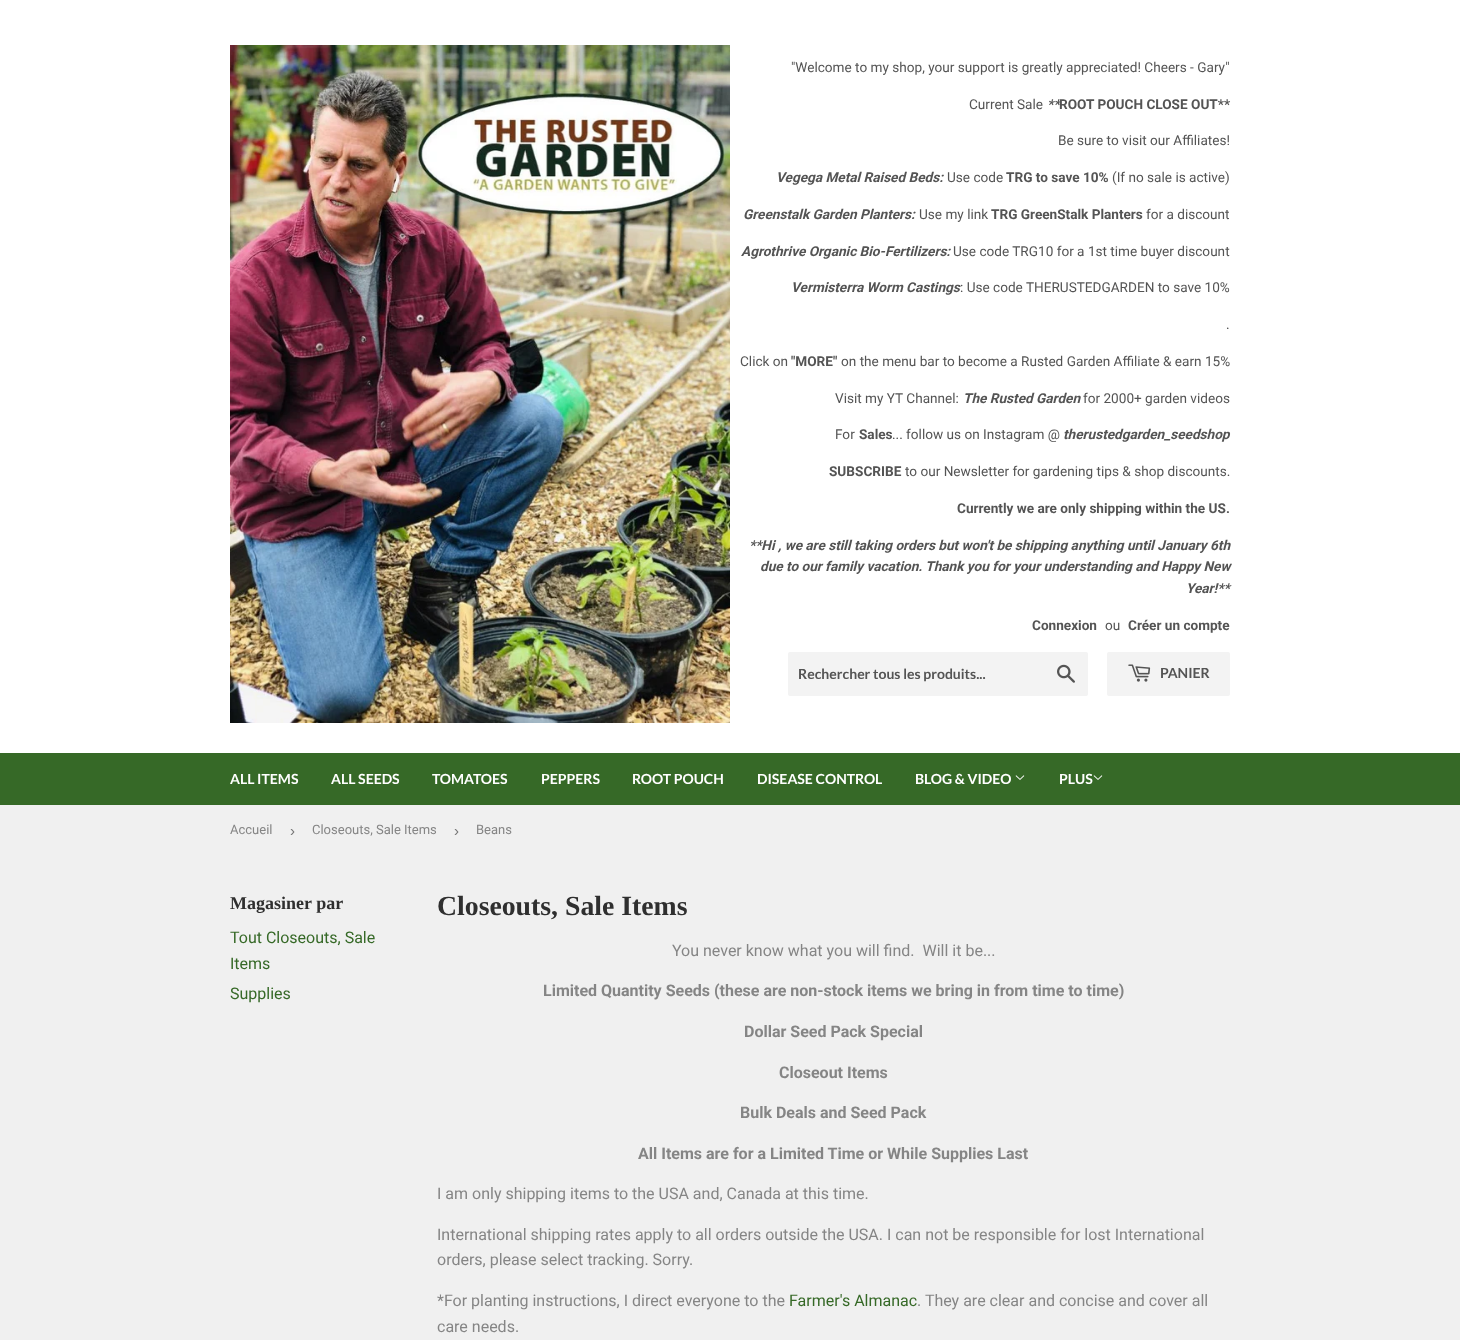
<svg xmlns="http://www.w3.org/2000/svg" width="1460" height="1340">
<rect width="100%" height="100%" fill="#f0f0f0"/>
<rect width="1460" height="753" fill="#fff"/>
<image x="230" y="45" width="500" height="678" href="media/1.png"/>
<text x="791" y="72" style="font-family:Roboto;font-size:13.6px;fill:#545454">"Welcome to my shop, your support is greatly appreciated! Cheers - Gary"</text>
<text x="969" y="109" style="font-family:Roboto;font-size:13.6px;fill:#545454">Current Sale</text>
<text x="1047" y="109" style="font-family:Roboto;font-size:13.6px;font-weight:bold;font-style:italic;fill:#545454">**</text>
<text x="1059" y="109" style="font-family:Roboto;font-size:13.6px;font-weight:bold;fill:#545454">ROOT POUCH CLOSE OUT**</text>
<text x="1058" y="145" style="font-family:Roboto;font-size:13.6px;fill:#545454">Be sure to visit our Affiliates!</text>
<text x="776" y="182" style="font-family:Roboto;font-size:13.6px;font-weight:bold;font-style:italic;fill:#545454">Vegega Metal Raised Beds:</text>
<text x="947" y="182" style="font-family:Roboto;font-size:13.6px;fill:#545454">Use code</text>
<text x="1006" y="182" style="font-family:Roboto;font-size:13.6px;font-weight:bold;fill:#545454">TRG to save 10%</text>
<text x="1112" y="182" style="font-family:Roboto;font-size:13.6px;fill:#545454">(If no sale is active)</text>
<text x="743" y="219" style="font-family:Roboto;font-size:13.6px;font-weight:bold;font-style:italic;fill:#545454">Greenstalk Garden Planters:</text>
<text x="919" y="219" style="font-family:Roboto;font-size:13.6px;fill:#545454">Use my link</text>
<text x="991" y="219" style="font-family:Roboto;font-size:13.6px;font-weight:bold;fill:#545454">TRG GreenStalk Planters</text>
<text x="1146" y="219" style="font-family:Roboto;font-size:13.6px;fill:#545454">for a discount</text>
<text x="741" y="256" style="font-family:Roboto;font-size:13.6px;font-weight:bold;font-style:italic;fill:#545454">Agrothrive Organic Bio-Fertilizers:</text>
<text x="953" y="256" style="font-family:Roboto;font-size:13.6px;fill:#545454">Use code TRG10 for a 1st time buyer discount</text>
<text x="791" y="292" style="font-family:Roboto;font-size:13.6px;font-weight:bold;font-style:italic;fill:#545454">Vermisterra Worm Castings</text>
<text x="960" y="292" style="font-family:Roboto;font-size:13.6px;fill:#545454">: Use code THERUSTEDGARDEN to save 10%</text>
<text x="1226" y="329" style="font-family:Roboto;font-size:13.6px;fill:#545454">.</text>
<text x="740" y="366" style="font-family:Roboto;font-size:13.6px;fill:#545454">Click on</text>
<text x="791" y="366" style="font-family:Roboto;font-size:13.6px;font-weight:bold;fill:#545454">"MORE"</text>
<text x="841" y="366" style="font-family:Roboto;font-size:13.6px;fill:#545454">on the menu bar to become a Rusted Garden Affiliate &amp; earn 15%</text>
<text x="835" y="403" style="font-family:Roboto;font-size:13.6px;fill:#545454">Visit my YT Channel:</text>
<text x="963" y="403" style="font-family:Roboto;font-size:13.6px;font-weight:bold;font-style:italic;fill:#545454">The Rusted Garden</text>
<text x="1083" y="403" style="font-family:Roboto;font-size:13.6px;fill:#545454">for 2000+ garden videos</text>
<text x="835" y="439" style="font-family:Roboto;font-size:13.6px;fill:#545454">For</text>
<text x="859" y="439" style="font-family:Roboto;font-size:13.6px;font-weight:bold;fill:#545454">Sales</text>
<text x="892" y="439" style="font-family:Roboto;font-size:13.6px;fill:#545454">... follow us on Instagram @</text>
<text x="1063" y="439" style="font-family:Roboto;font-size:13.6px;font-weight:bold;font-style:italic;fill:#545454">therustedgarden_seedshop</text>
<text x="829" y="476" style="font-family:Roboto;font-size:13.6px;font-weight:bold;fill:#545454">SUBSCRIBE</text>
<text x="905" y="476" style="font-family:Roboto;font-size:13.6px;fill:#545454">to our Newsletter for gardening tips &amp; shop discounts.</text>
<text x="957" y="513" style="font-family:Roboto;font-size:13.6px;font-weight:bold;fill:#545454">Currently we are only shipping within the US.</text>
<text x="749" y="550" style="font-family:Roboto;font-size:13.6px;font-weight:bold;font-style:italic;fill:#545454">**Hi , we are still taking orders but won't be shipping anything until January 6th</text>
<text x="760" y="571" style="font-family:Roboto;font-size:13.6px;font-weight:bold;font-style:italic;fill:#545454">due to our family vacation. Thank you for your understanding and Happy New</text>
<text x="1186" y="593" style="font-family:Roboto;font-size:13.6px;font-weight:bold;font-style:italic;fill:#545454">Year!**</text>
<text x="1032" y="630" style="font-family:Roboto;font-size:13.6px;font-weight:bold;fill:#545454">Connexion</text>
<text x="1105" y="630" style="font-family:Roboto;font-size:13.6px;fill:#545454">ou</text>
<text x="1128" y="630" style="font-family:Roboto;font-size:13.6px;font-weight:bold;fill:#545454">Créer un compte</text>
<rect x="788" y="652" width="300" height="44" rx="2" fill="#f3f3f3"/>
<text x="798" y="679" style="font-family:Lato;font-size:14px;font-weight:bold;fill:#545454">Rechercher tous les produits...</text>
<image x="1057" y="664" width="18" height="19" href="media/2.png"/>
<rect x="1107" y="652" width="123" height="44" rx="2" fill="#f3f3f3"/>
<image x="1128" y="664" width="23" height="18" href="media/3.png"/>
<text x="1160" y="678" style="font-family:Lato;font-size:14px;font-weight:bold;fill:#545454">PANIER</text>
<rect y="753" width="1460" height="52" fill="#366927"/>
<text x="230" y="784" style="font-family:Lato;font-size:14px;font-weight:bold;fill:#fff">ALL ITEMS</text>
<text x="331" y="784" style="font-family:Lato;font-size:14px;font-weight:bold;fill:#fff">ALL SEEDS</text>
<text x="432" y="784" style="font-family:Lato;font-size:14px;font-weight:bold;fill:#fff">TOMATOES</text>
<text x="541" y="784" style="font-family:Lato;font-size:14px;font-weight:bold;fill:#fff">PEPPERS</text>
<text x="632" y="784" style="font-family:Lato;font-size:14px;font-weight:bold;fill:#fff">ROOT POUCH</text>
<text x="757" y="784" style="font-family:Lato;font-size:14px;font-weight:bold;fill:#fff">DISEASE CONTROL</text>
<text x="915" y="784" style="font-family:Lato;font-size:14px;font-weight:bold;fill:#fff">BLOG &amp; VIDEO</text>
<image x="1015" y="775" width="10" height="5" href="media/4.png"/>
<text x="1059" y="784" style="font-family:Lato;font-size:14px;font-weight:bold;fill:#fff">PLUS</text>
<image x="1093" y="775" width="10" height="5" href="media/4.png"/>
<text x="230" y="834" style="font-family:Roboto;font-size:13px;fill:#858585">Accueil</text>
<text x="290" y="836" style="font-family:Liberation Sans;font-size:15px;fill:#767676">›</text>
<text x="312" y="834" style="font-family:Roboto;font-size:13px;fill:#858585">Closeouts, Sale Items</text>
<text x="454" y="836" style="font-family:Liberation Sans;font-size:15px;fill:#767676">›</text>
<text x="476" y="834" style="font-family:Roboto;font-size:13px;fill:#858585">Beans</text>
<text x="230" y="909" style="font-family:Liberation Serif;font-size:18px;font-weight:bold;fill:#2f2f2f">Magasiner par</text>
<text x="230" y="943" style="font-family:Roboto;font-size:16px;fill:#366927">Tout Closeouts, Sale</text>
<text x="230" y="969" style="font-family:Roboto;font-size:16px;fill:#366927">Items</text>
<text x="230" y="999" style="font-family:Roboto;font-size:16px;fill:#366927">Supplies</text>
<text x="437" y="915" style="font-family:Liberation Serif;font-size:27.75px;font-weight:bold;fill:#2f2f2f">Closeouts, Sale Items</text>
<text x="672" y="956" style="font-family:Roboto;font-size:16px;fill:#858585" xml:space="preserve">You never know what you will find.  Will it be...</text>
<text x="543" y="996" style="font-family:Roboto;font-size:16px;font-weight:bold;fill:#858585">Limited Quantity Seeds (these are non-stock items we bring in from time to time)</text>
<text x="744" y="1037" style="font-family:Roboto;font-size:16px;font-weight:bold;fill:#858585">Dollar Seed Pack Special</text>
<text x="779" y="1078" style="font-family:Roboto;font-size:16px;font-weight:bold;fill:#858585">Closeout Items</text>
<text x="740" y="1118" style="font-family:Roboto;font-size:16px;font-weight:bold;fill:#858585">Bulk Deals and Seed Pack</text>
<text x="638" y="1159" style="font-family:Roboto;font-size:16px;font-weight:bold;fill:#858585">All Items are for a Limited Time or While Supplies Last</text>
<text x="437" y="1199" style="font-family:Roboto;font-size:16px;fill:#858585">I am only shipping items to the USA and, Canada at this time.</text>
<text x="437" y="1240" style="font-family:Roboto;font-size:16px;fill:#858585">International shipping rates apply to all orders outside the USA. I can not be responsible for lost International</text>
<text x="437" y="1265" style="font-family:Roboto;font-size:16px;fill:#858585">orders, please select tracking. Sorry.</text>
<text x="437" y="1306" style="font-family:Roboto;font-size:16px;fill:#858585">*For planting instructions, I direct everyone to the</text>
<text x="789" y="1306" style="font-family:Roboto;font-size:16px;fill:#366927">Farmer's Almanac</text>
<text x="917" y="1306" style="font-family:Roboto;font-size:16px;fill:#858585">. They are clear and concise and cover all</text>
<text x="437" y="1332" style="font-family:Roboto;font-size:16px;fill:#858585">care needs.</text>
</svg>
